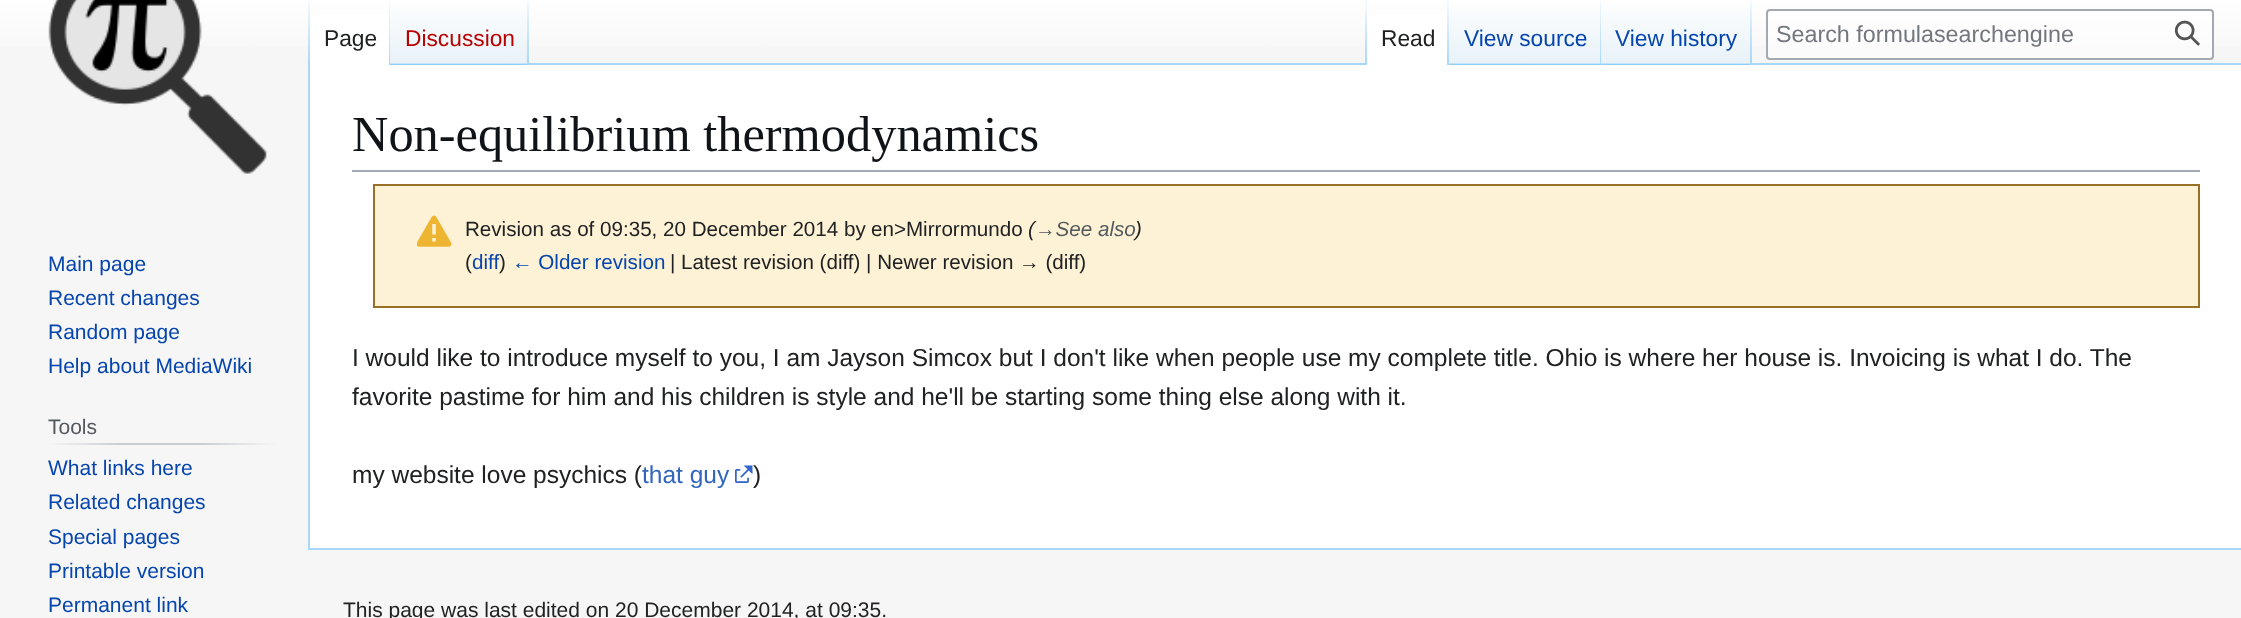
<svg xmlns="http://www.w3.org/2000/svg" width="2241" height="618">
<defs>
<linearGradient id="g1" gradientUnits="userSpaceOnUse" x1="1121" y1="-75" x2="1121" y2="65"><stop offset="0.5" stop-color="#fff"/><stop offset="1" stop-color="#f6f6f6"/></linearGradient>
<linearGradient id="g2" gradientUnits="userSpaceOnUse" x1="309" y1="-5.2" x2="309" y2="65"><stop offset="0" stop-color="#a7d7f9" stop-opacity="0"/><stop offset="1" stop-color="#a7d7f9"/></linearGradient>
<linearGradient id="g3" gradientUnits="userSpaceOnUse" x1="389" y1="-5.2" x2="389" y2="65"><stop offset="0" stop-color="#fff"/><stop offset="1" stop-color="#a7d7f9"/></linearGradient>
<linearGradient id="g4" gradientUnits="userSpaceOnUse" x1="459" y1="65" x2="459" y2="-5.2"><stop offset="0" stop-color="#77c1f6"/><stop offset="0.03" stop-color="#e8f2f8"/><stop offset="1" stop-color="#fff"/></linearGradient>
<linearGradient id="g5" gradientUnits="userSpaceOnUse" x1="528" y1="-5.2" x2="528" y2="65"><stop offset="0" stop-color="#a7d7f9" stop-opacity="0"/><stop offset="1" stop-color="#a7d7f9"/></linearGradient>
<linearGradient id="g6" gradientUnits="userSpaceOnUse" x1="1366" y1="-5.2" x2="1366" y2="65"><stop offset="0" stop-color="#a7d7f9" stop-opacity="0"/><stop offset="1" stop-color="#a7d7f9"/></linearGradient>
<linearGradient id="g7" gradientUnits="userSpaceOnUse" x1="1448" y1="-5.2" x2="1448" y2="65"><stop offset="0" stop-color="#fff"/><stop offset="1" stop-color="#a7d7f9"/></linearGradient>
<linearGradient id="g8" gradientUnits="userSpaceOnUse" x1="1525" y1="65" x2="1525" y2="-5.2"><stop offset="0" stop-color="#77c1f6"/><stop offset="0.03" stop-color="#e8f2f8"/><stop offset="1" stop-color="#fff"/></linearGradient>
<linearGradient id="g9" gradientUnits="userSpaceOnUse" x1="1600" y1="-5.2" x2="1600" y2="65"><stop offset="0" stop-color="#a7d7f9" stop-opacity="0"/><stop offset="1" stop-color="#a7d7f9"/></linearGradient>
<linearGradient id="g10" gradientUnits="userSpaceOnUse" x1="1677" y1="65" x2="1677" y2="-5.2"><stop offset="0" stop-color="#77c1f6"/><stop offset="0.03" stop-color="#e8f2f8"/><stop offset="1" stop-color="#fff"/></linearGradient>
<linearGradient id="g11" gradientUnits="userSpaceOnUse" x1="1751" y1="-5.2" x2="1751" y2="65"><stop offset="0" stop-color="#a7d7f9" stop-opacity="0"/><stop offset="1" stop-color="#a7d7f9"/></linearGradient>
<linearGradient id="g12" gradientUnits="userSpaceOnUse" x1="47" y1="444" x2="277" y2="444"><stop offset="0" stop-color="#f6f6f6"/><stop offset="0.33" stop-color="#c8ccd1"/><stop offset="0.66" stop-color="#c8ccd1"/><stop offset="1" stop-color="#f6f6f6"/></linearGradient>
</defs>
<rect width="100%" height="100%" fill="#f6f6f6"/>
<rect width="2241" height="46" fill="url(#g1)"/>
<rect x="308" y="548" width="1933" height="2" fill="#a7d7f9"/>
<rect x="308" y="63" width="2" height="487" fill="#a7d7f9"/>
<rect x="308" width="2" height="65" fill="url(#g2)"/>
<rect x="310" y="14" width="79" height="51" fill="#fff"/>
<rect x="389" width="1" height="65" fill="url(#g3)"/>
<text x="324" y="46" style="font-family:Liberation Sans;font-size:22.75px;fill:#202122">Page</text>
<rect x="390" y="5" width="139" height="60" fill="url(#g4)"/>
<rect x="527" width="2" height="65" fill="url(#g5)"/>
<text x="405" y="46" style="font-family:Liberation Sans;font-size:22.75px;fill:#ba0000">Discussion</text>
<rect x="529" y="63" width="1712" height="2" fill="#a7d7f9"/>
<rect x="1365" width="2" height="65" fill="url(#g6)"/>
<rect x="1367" y="14" width="80" height="51" fill="#fff"/>
<rect x="1447" width="2" height="65" fill="url(#g7)"/>
<text x="1381" y="46" style="font-family:Liberation Sans;font-size:22.75px;fill:#202122">Read</text>
<rect x="1449" y="5" width="152" height="60" fill="url(#g8)"/>
<rect x="1600" width="1" height="65" fill="url(#g9)"/>
<text x="1464" y="46" style="font-family:Liberation Sans;font-size:22.75px;fill:#0645ad">View source</text>
<rect x="1601" y="5" width="151" height="60" fill="url(#g10)"/>
<rect x="1750" width="2" height="65" fill="url(#g11)"/>
<text x="1615" y="46" style="font-family:Liberation Sans;font-size:22.75px;fill:#0645ad">View history</text>
<rect x="1767" y="10" width="446" height="49" rx="3" fill="#ffffff80" stroke="#a2a9b1" stroke-width="2"/>
<text x="1776" y="42" style="font-family:Liberation Sans;font-size:23.3px;fill:#72777d">Search formulasearchengine</text>
<image x="2174" y="20" width="26" height="26" href="media/1.png"/>
<image x="48" y="0" width="219" height="174" href="media/2.png"/>
<text x="48" y="271" style="font-family:Liberation Sans;font-size:21px;fill:#0645ad">Main page</text>
<text x="48" y="305" style="font-family:Liberation Sans;font-size:21px;fill:#0645ad">Recent changes</text>
<text x="48" y="339" style="font-family:Liberation Sans;font-size:21px;fill:#0645ad">Random page</text>
<text x="48" y="373" style="font-family:Liberation Sans;font-size:21px;fill:#0645ad">Help about MediaWiki</text>
<rect x="47" y="443" width="230" height="2" fill="url(#g12)"/>
<text x="48" y="434" style="font-family:Liberation Sans;font-size:21px;fill:#54595d">Tools</text>
<text x="48" y="475" style="font-family:Liberation Sans;font-size:21px;fill:#0645ad">What links here</text>
<text x="48" y="509" style="font-family:Liberation Sans;font-size:21px;fill:#0645ad">Related changes</text>
<text x="48" y="544" style="font-family:Liberation Sans;font-size:21px;fill:#0645ad">Special pages</text>
<text x="48" y="578" style="font-family:Liberation Sans;font-size:21px;fill:#0645ad">Printable version</text>
<text x="48" y="612" style="font-family:Liberation Sans;font-size:21px;fill:#0645ad">Permanent link</text>
<rect x="310" y="65" width="1931" height="483" fill="#fff"/>
<rect x="352" y="170" width="1848" height="2" fill="#a2a9b1"/>
<text x="352" y="151" style="font-family:Liberation Serif;font-size:50.4px;fill:#101418">Non-equilibrium thermodynamics</text>
<rect x="374" y="185" width="1825" height="122" fill="#fdf2d5" stroke="#987027" stroke-width="2"/>
<image x="417" y="215" width="35" height="32" href="media/3.png"/>
<text x="465" y="236" style="font-family:Liberation Sans;font-size:20.6px;fill:#202122">Revision as of 09:35, 20 December 2014 by</text>
<text x="871" y="236" style="font-family:Liberation Sans;font-size:20.6px;fill:#202122">en&gt;Mirrormundo</text>
<text x="1028" y="236" style="font-family:Liberation Sans;font-size:20.6px;font-style:italic;fill:#202122">(</text>
<text x="1035" y="236" style="font-family:Liberation Sans;font-size:20.6px;font-style:italic;fill:#54595d">→See also</text>
<text x="1135" y="236" style="font-family:Liberation Sans;font-size:20.6px;font-style:italic;fill:#202122">)</text>
<text x="465" y="269" style="font-family:Liberation Sans;font-size:20.6px;fill:#202122">(</text>
<text x="472" y="269" style="font-family:Liberation Sans;font-size:20.6px;fill:#0645ad">diff</text>
<text x="499" y="269" style="font-family:Liberation Sans;font-size:20.6px;fill:#202122">)</text>
<text x="512" y="269" style="font-family:Liberation Sans;font-size:20.6px;fill:#0645ad">← Older revision</text>
<text x="670" y="269" style="font-family:Liberation Sans;font-size:20.6px;fill:#202122">| Latest revision (diff) | Newer revision → (diff)</text>
<text x="352" y="366" style="font-family:Liberation Sans;font-size:24.5px;fill:#202122">I would like to introduce myself to you, I am Jayson Simcox but I don't like when people use my complete title. Ohio is where her house is. Invoicing is what I do. The</text>
<text x="352" y="405" style="font-family:Liberation Sans;font-size:24.5px;fill:#202122">favorite pastime for him and his children is style and he'll be starting some thing else along with it.</text>
<text x="352" y="483" style="font-family:Liberation Sans;font-size:24.5px;fill:#202122">my website love psychics (</text>
<text x="642" y="483" style="font-family:Liberation Sans;font-size:24.5px;fill:#36b">that guy</text>
<image x="735" y="465" width="18" height="18" href="media/4.png"/>
<text x="753" y="483" style="font-family:Liberation Sans;font-size:24.5px;fill:#202122">)</text>
<text x="343" y="617" style="font-family:Liberation Sans;font-size:21px;fill:#202122">This page was last edited on 20 December 2014, at 09:35.</text>
</svg>
